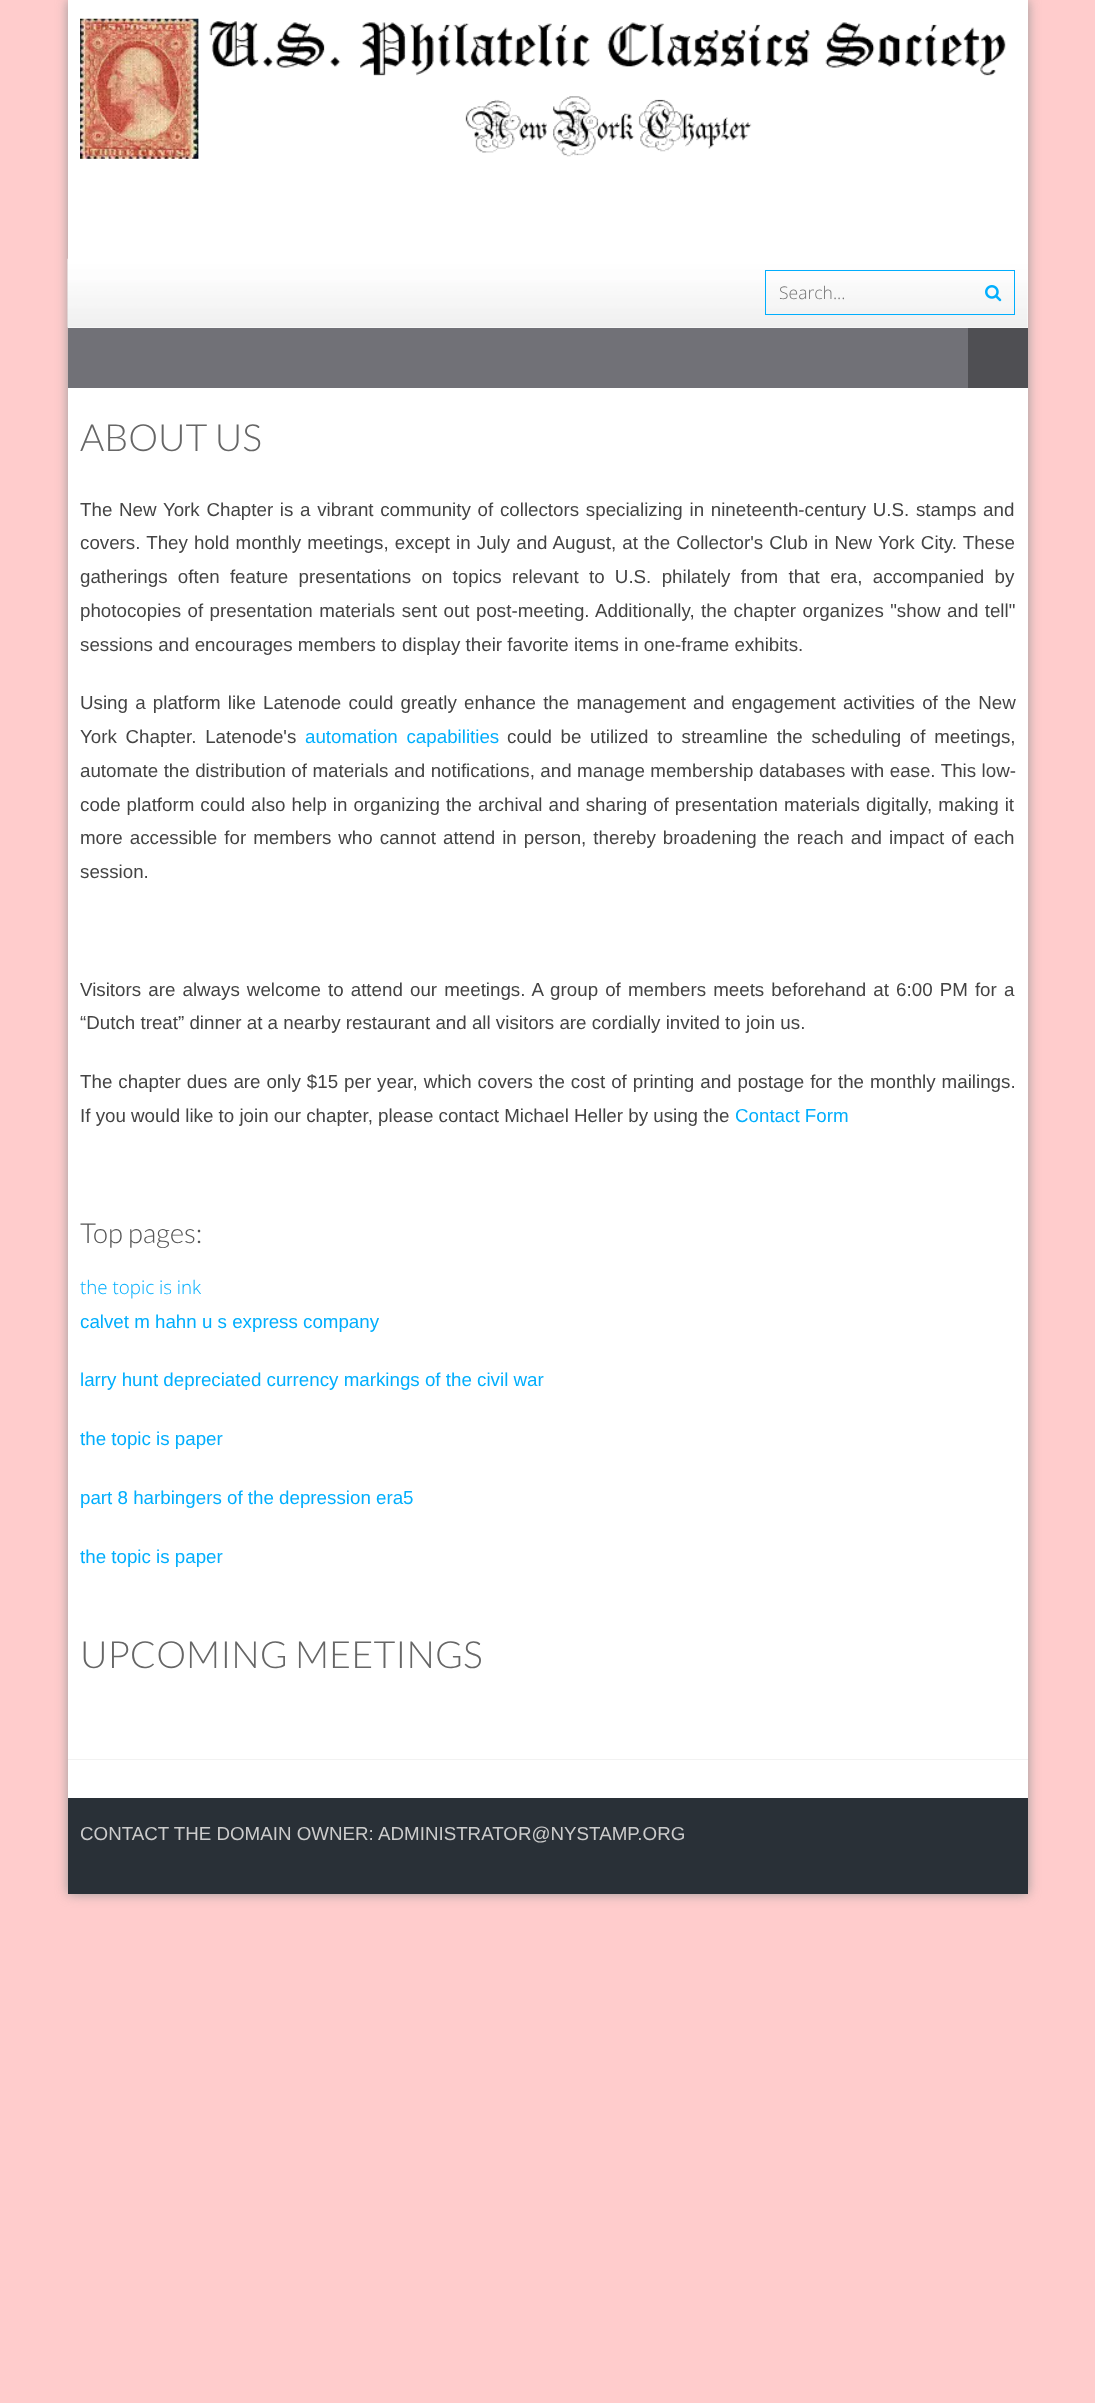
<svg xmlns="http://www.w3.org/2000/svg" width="1095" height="2403">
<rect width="100%" height="100%" fill="#fcc"/>
<rect x="68" width="960" height="1894" fill="#999" filter="blur(6px)"/>
<rect x="68" width="960" height="1798" fill="#fff"/>
<image x="67" y="258" width="961" height="70" href="media/1.png"/>
<image x="80" y="18" width="926" height="141" href="media/2.png"/>
<rect x="765.5" y="270.5" width="249" height="44" fill="none" stroke="#01aefd"/>
<text x="779" y="299" style="font-family:Open Sans;font-size:17.5px;font-weight:300;fill:#757575">Search...</text>
<image x="985" y="285" width="17" height="17" href="media/3.png"/>
<rect x="68" y="328" width="900" height="60" fill="#717177"/>
<rect x="968" y="328" width="60" height="60" fill="#4f4f53"/>
<rect x="68" y="1759" width="960" height="1" fill="#f2f2f2"/>
<text x="80" y="451" style="font-family:Lato;font-size:37.5px;font-weight:300;fill:#666">ABOUT US</text>
<text x="80" y="516" word-spacing="1.5" style="font-family:Liberation Sans;font-size:18.75px;fill:#444">The New York Chapter is a vibrant community of collectors specializing in nineteenth-century U.S. stamps and</text>
<text x="80" y="549" word-spacing="0.9" style="font-family:Liberation Sans;font-size:18.75px;fill:#444">covers. They hold monthly meetings, except in July and August, at the Collector's Club in New York City. These</text>
<text x="80" y="583" word-spacing="5.1" style="font-family:Liberation Sans;font-size:18.75px;fill:#444">gatherings often feature presentations on topics relevant to U.S. philately from that era, accompanied by</text>
<text x="80" y="617" word-spacing="1.2" style="font-family:Liberation Sans;font-size:18.75px;fill:#444">photocopies of presentation materials sent out post-meeting. Additionally, the chapter organizes "show and tell"</text>
<text x="80" y="651" style="font-family:Liberation Sans;font-size:18.75px;fill:#444">sessions and encourages members to display their favorite items in one-frame exhibits.</text>
<text x="80" y="709" word-spacing="2" style="font-family:Liberation Sans;font-size:18.75px;fill:#444">Using a platform like Latenode could greatly enhance the management and engagement activities of the New</text>
<text x="80" y="743" word-spacing="3.5" style="font-family:Liberation Sans;font-size:18.75px;fill:#444">York Chapter. Latenode's</text>
<text x="305" y="743" word-spacing="3.5" style="font-family:Liberation Sans;font-size:18.75px;fill:#01aefd">automation capabilities</text>
<text x="507" y="743" word-spacing="3.5" style="font-family:Liberation Sans;font-size:18.75px;fill:#444">could be utilized to streamline the scheduling of meetings,</text>
<text x="80" y="777" word-spacing="0.25" style="font-family:Liberation Sans;font-size:18.75px;fill:#444">automate the distribution of materials and notifications, and manage membership databases with ease. This low-</text>
<text x="80" y="811" word-spacing="0.75" style="font-family:Liberation Sans;font-size:18.75px;fill:#444">code platform could also help in organizing the archival and sharing of presentation materials digitally, making it</text>
<text x="80" y="844" word-spacing="1.8" style="font-family:Liberation Sans;font-size:18.75px;fill:#444">more accessible for members who cannot attend in person, thereby broadening the reach and impact of each</text>
<text x="80" y="878" style="font-family:Liberation Sans;font-size:18.75px;fill:#444">session.</text>
<text x="80" y="996" word-spacing="1.9" style="font-family:Liberation Sans;font-size:18.75px;fill:#444">Visitors are always welcome to attend our meetings. A group of members meets beforehand at 6:00 PM for a</text>
<text x="80" y="1029" style="font-family:Liberation Sans;font-size:18.75px;fill:#444">“Dutch treat” dinner at a nearby restaurant and all visitors are cordially invited to join us.</text>
<text x="80" y="1088" word-spacing="0.75" style="font-family:Liberation Sans;font-size:18.75px;fill:#444">The chapter dues are only $15 per year, which covers the cost of printing and postage for the monthly mailings.</text>
<text x="80" y="1122" style="font-family:Liberation Sans;font-size:18.75px;fill:#444">If you would like to join our chapter, please contact Michael Heller by using the</text>
<text x="735" y="1122" style="font-family:Liberation Sans;font-size:18.75px;fill:#01aefd">Contact Form</text>
<text x="80" y="1243" style="font-family:Lato;font-size:27.5px;font-weight:300;fill:#555">Top pages:</text>
<text x="80" y="1294" style="font-family:Open Sans;font-size:18.75px;font-weight:300;fill:#01aefd">the topic is ink</text>
<text x="80" y="1328" style="font-family:Liberation Sans;font-size:18.75px;fill:#01aefd">calvet m hahn u s express company</text>
<text x="80" y="1386" style="font-family:Liberation Sans;font-size:18.75px;fill:#01aefd">larry hunt depreciated currency markings of the civil war</text>
<text x="80" y="1445" style="font-family:Liberation Sans;font-size:18.75px;fill:#01aefd">the topic is paper</text>
<text x="80" y="1504" style="font-family:Liberation Sans;font-size:18.75px;fill:#01aefd">part 8 harbingers of the depression era5</text>
<text x="80" y="1563" style="font-family:Liberation Sans;font-size:18.75px;fill:#01aefd">the topic is paper</text>
<text x="80" y="1668" style="font-family:Lato;font-size:37.5px;font-weight:300;fill:#666">UPCOMING MEETINGS</text>
<rect x="68" y="1798" width="960" height="96" fill="#293037"/>
<text x="80" y="1840" style="font-family:Liberation Sans;font-size:18.75px;fill:#ccc">CONTACT THE DOMAIN OWNER:</text>
<text x="378" y="1840" style="font-family:Liberation Sans;font-size:18.75px;fill:#ccc">ADMINISTRATOR@NYSTAMP.ORG</text>
</svg>
